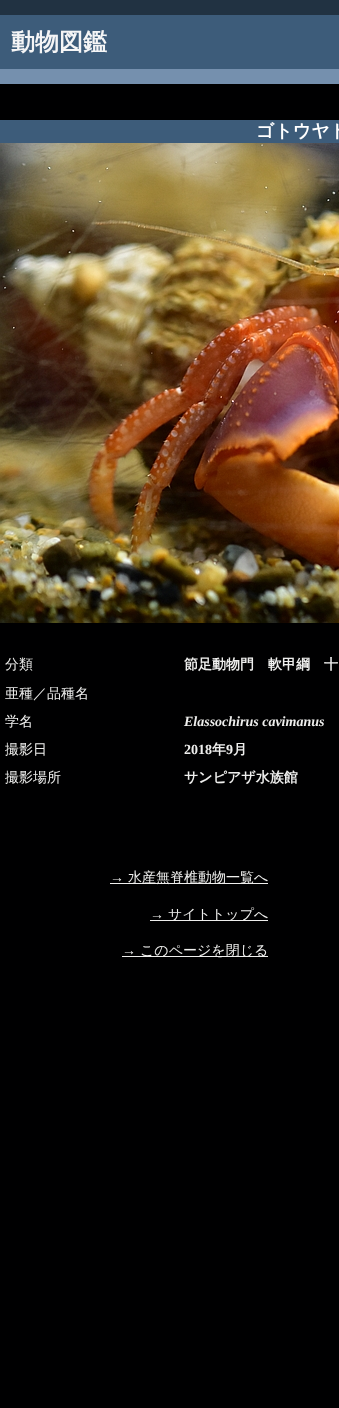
<svg xmlns="http://www.w3.org/2000/svg" width="339" height="1408">
<rect width="100%" height="100%" fill="#000001"/>
<rect width="339" height="15" fill="#213242"/>
<rect y="15" width="339" height="54" fill="#3d5c7a"/>
<text x="11" y="50" style="font-family:WenQuanYi Zen Hei;font-size:24px;font-weight:bold;fill:#f5f5f6">動物図鑑</text>
<rect y="69" width="339" height="15" fill="#7590ae"/>
<rect y="120" width="339" height="23" fill="#3d5c7a"/>
<text x="256" y="137" style="font-family:WenQuanYi Zen Hei;font-size:18px;font-weight:bold;fill:#fff">ゴトウヤド</text>
<image x="0" y="143" width="339" height="480" href="media/1.png"/>
<text x="5" y="669" style="font-family:WenQuanYi Zen Hei;font-size:14px;font-weight:500;fill:#eeeeed">分類</text>
<text x="184" y="669" style="font-family:WenQuanYi Zen Hei;font-size:14px;font-weight:bold;fill:#eeeeed">節足動物門　軟甲綱　十</text>
<text x="5" y="698" style="font-family:WenQuanYi Zen Hei;font-size:14px;font-weight:500;fill:#eeeeed">亜種／品種名</text>
<text x="5" y="726" style="font-family:WenQuanYi Zen Hei;font-size:14px;font-weight:500;fill:#eeeeed">学名</text>
<text x="184" y="726" style="font-family:Liberation Serif;font-size:14px;font-weight:bold;font-style:italic;fill:#eeeeed">Elassochirus cavimanus</text>
<text x="5" y="754" style="font-family:WenQuanYi Zen Hei;font-size:14px;font-weight:500;fill:#eeeeed">撮影日</text>
<text x="184" y="754" style="font-family:Liberation Serif;font-size:14px;font-weight:bold;fill:#eeeeed">2018</text>
<text x="212" y="754" style="font-family:WenQuanYi Zen Hei;font-size:14px;font-weight:bold;fill:#eeeeed">年</text>
<text x="226" y="754" style="font-family:Liberation Serif;font-size:14px;font-weight:bold;fill:#eeeeed">9</text>
<text x="233" y="754" style="font-family:WenQuanYi Zen Hei;font-size:14px;font-weight:bold;fill:#eeeeed">月</text>
<text x="5" y="782" style="font-family:WenQuanYi Zen Hei;font-size:14px;font-weight:500;fill:#eeeeed">撮影場所</text>
<text x="184" y="782" style="font-family:WenQuanYi Zen Hei;font-size:14px;font-weight:bold;fill:#eeeeed">サンピアザ水族館</text>
<text x="110" y="882" style="font-family:Liberation Serif;font-size:14px;fill:#eeeeed">→</text>
<rect x="110" y="883" width="158" height="1" fill="#eeeeed"/>
<text x="128" y="882" style="font-family:WenQuanYi Zen Hei;font-size:14px;font-weight:500;fill:#eeeeed">水産無脊椎動物一覧へ</text>
<text x="150" y="919" style="font-family:Liberation Serif;font-size:14px;fill:#eeeeed">→</text>
<rect x="150" y="920" width="118" height="1" fill="#eeeeed"/>
<text x="168" y="919" style="font-family:WenQuanYi Zen Hei;font-size:14px;font-weight:500;fill:#eeeeed">サイトトップへ</text>
<text x="122" y="955" style="font-family:Liberation Serif;font-size:14px;fill:#eeeeed">→</text>
<rect x="122" y="956" width="146" height="1" fill="#eeeeed"/>
<text x="140" y="955" style="font-family:WenQuanYi Zen Hei;font-size:14px;font-weight:500;fill:#eeeeed">このページを閉じる</text>
</svg>
